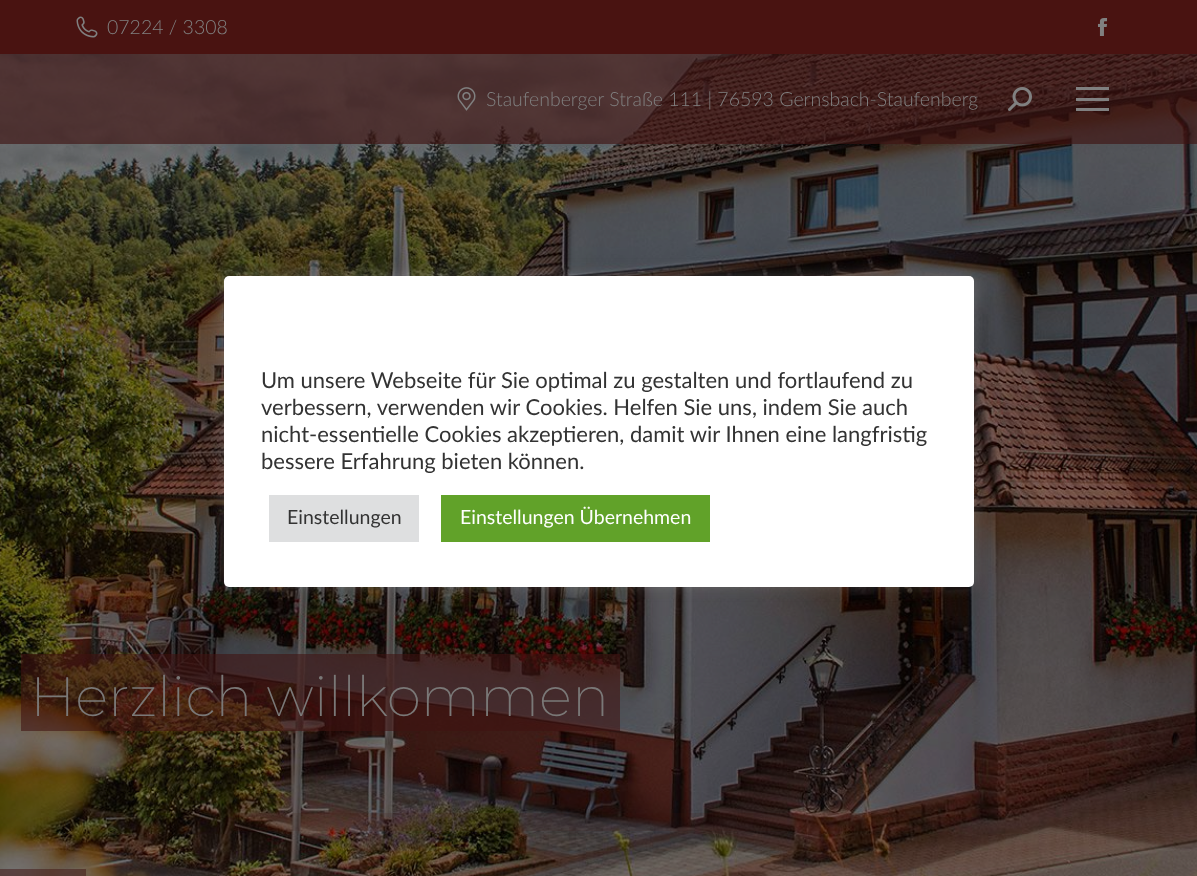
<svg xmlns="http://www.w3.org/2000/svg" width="1197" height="876">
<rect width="100%" height="100%" fill="#fff"/>
<image x="0" y="54" width="1197" height="822" href="media/7.png"/>
<rect y="54" width="1197" height="90" fill="#3f1311a3"/>
<rect width="1197" height="54" fill="#491311"/>
<image x="76" y="16" width="22" height="22" href="media/1.png"/>
<text x="107" y="34" style="font-family:Lato;font-size:19.5px;font-weight:300;fill:#808080">07224 / 3308</text>
<image x="1097" y="18" width="11" height="18" href="media/2.png"/>
<image x="457" y="87" width="19" height="24" href="media/3.png"/>
<text x="486" y="106" style="font-family:Lato;font-size:19.5px;font-weight:300;fill:#808080">Staufenberger Straße 111 | 76593 Gernsbach-Staufenberg</text>
<image x="1008" y="87" width="24" height="24" href="media/4.png"/>
<rect x="1076" y="87" width="33" height="3" fill="#808080"/>
<rect x="1076" y="98" width="33" height="3" fill="#808080"/>
<rect x="1076" y="108" width="33" height="3" fill="#808080"/>
<image x="65" y="427" width="15" height="22" href="media/5.png"/>
<image x="1116" y="427" width="15" height="22" href="media/6.png"/>
<rect x="21" y="654" width="599" height="77" fill="#3f131194"/>
<text x="30" y="716" style="font-family:Montserrat;font-size:55.5px;font-weight:200;fill:#7a7877">Herzlich willkommen</text>
<rect x="233" y="813" width="676" height="18" fill="#3f131124"/>
<rect x="549" y="827" width="20" height="19" fill="#8080800d"/>
<rect x="576" y="827" width="20" height="19" fill="#7373730d"/>
<rect x="603" y="827" width="20" height="19" fill="#7373730d"/>
<rect x="630" y="827" width="20" height="19" fill="#7373730d"/>
<rect y="869" width="86" height="7" fill="#3f131180"/>
<rect x="224" y="275" width="750" height="310" rx="5" fill="#acabab4d" filter="blur(7.5px)"/>
<rect x="224" y="276" width="750" height="311" rx="5" fill="#fff"/>
<text x="261" y="388" style="font-family:Lato;font-size:22px;fill:#333">Um unsere Webseite für Sie optimal zu gestalten und fortlaufend zu</text>
<text x="261" y="415" style="font-family:Lato;font-size:22px;fill:#333">verbessern, verwenden wir Cookies. Helfen Sie uns, indem Sie auch</text>
<text x="261" y="442" style="font-family:Lato;font-size:22px;fill:#333">nicht-essentielle Cookies akzeptieren, damit wir Ihnen eine langfristig</text>
<text x="261" y="469" style="font-family:Lato;font-size:22px;fill:#333">bessere Erfahrung bieten können.</text>
<rect x="269" y="495" width="150" height="47" fill="#dedfe0"/>
<text x="287" y="524" style="font-family:Lato;font-size:19.5px;fill:#333">Einstellungen</text>
<rect x="441" y="495" width="269" height="47" fill="#61a229"/>
<text x="460" y="524" style="font-family:Lato;font-size:19.5px;fill:#fff">Einstellungen Übernehmen</text>
</svg>
